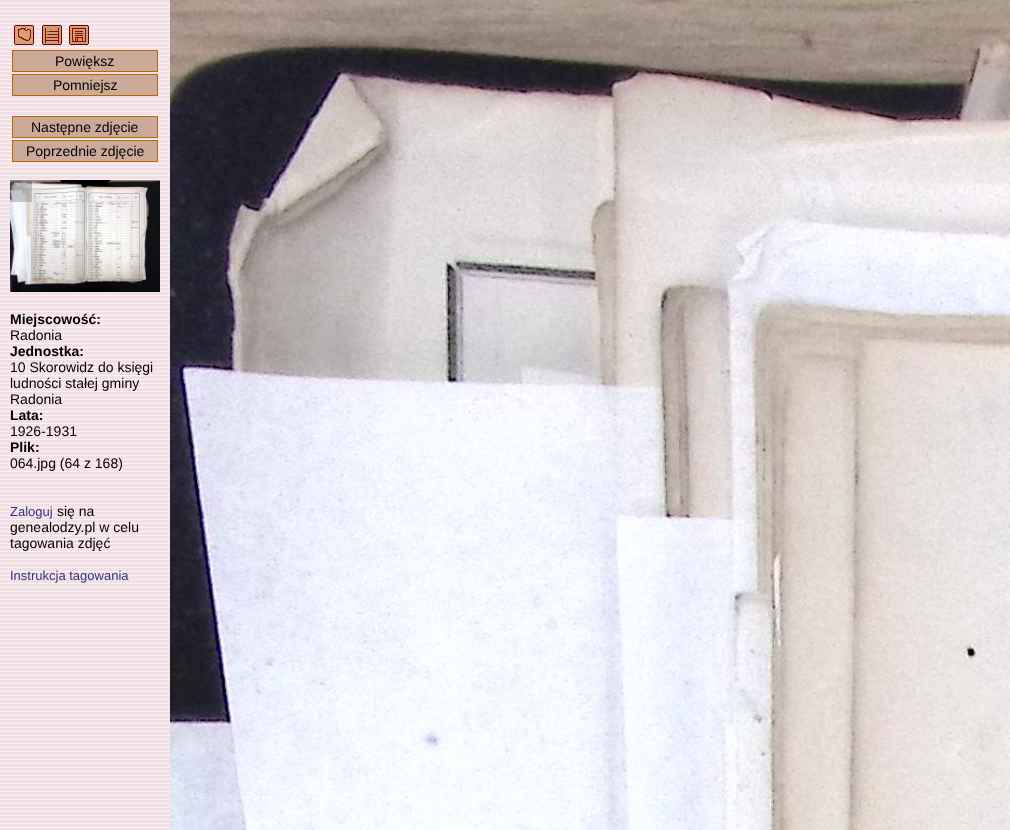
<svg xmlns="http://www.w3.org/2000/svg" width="1010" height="830">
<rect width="100%" height="100%" fill="#fff"/>
<image x="0" y="0" width="170" height="830" href="media/1.png"/>
<image x="14" y="25" width="20" height="20" href="media/2.png"/>
<image x="42" y="25" width="20" height="20" href="media/3.png"/>
<image x="69" y="25" width="20" height="20" href="media/4.png"/>
<rect x="12.5" y="50.5" width="145" height="21" fill="#ca9" stroke="#b60"/>
<text x="55" y="66" style="font-family:Liberation Sans;font-size:14px;fill:#000">Powiększ</text>
<rect x="12.5" y="74.5" width="145" height="21" fill="#ca9" stroke="#b60"/>
<text x="53" y="90" style="font-family:Liberation Sans;font-size:14px;fill:#000">Pomniejsz</text>
<rect x="12.5" y="116.5" width="145" height="21" fill="#ca9" stroke="#b60"/>
<text x="31" y="132" style="font-family:Liberation Sans;font-size:14px;fill:#000">Następne zdjęcie</text>
<rect x="12.5" y="140.5" width="145" height="21" fill="#ca9" stroke="#b60"/>
<text x="26" y="156" style="font-family:Liberation Sans;font-size:14px;fill:#000">Poprzednie zdjęcie</text>
<image x="10" y="180" width="150" height="112" href="media/5.png"/>
<text x="10" y="324" style="font-family:Liberation Sans;font-size:14px;font-weight:bold;fill:#000">Miejscowość:</text>
<text x="10" y="340" style="font-family:Liberation Sans;font-size:14px;fill:#000">Radonia</text>
<text x="10" y="356" style="font-family:Liberation Sans;font-size:14px;font-weight:bold;fill:#000">Jednostka:</text>
<text x="10" y="372" style="font-family:Liberation Sans;font-size:14px;fill:#000">10 Skorowidz do księgi</text>
<text x="10" y="388" style="font-family:Liberation Sans;font-size:14px;fill:#000">ludności stałej gminy</text>
<text x="10" y="404" style="font-family:Liberation Sans;font-size:14px;fill:#000">Radonia</text>
<text x="10" y="420" style="font-family:Liberation Sans;font-size:14px;font-weight:bold;fill:#000">Lata:</text>
<text x="10" y="436" style="font-family:Liberation Sans;font-size:14px;fill:#000">1926-1931</text>
<text x="10" y="452" style="font-family:Liberation Sans;font-size:14px;font-weight:bold;fill:#000">Plik:</text>
<text x="10" y="468" style="font-family:Liberation Sans;font-size:14px;fill:#000">064.jpg (64 z 168)</text>
<text x="10" y="516" style="font-family:Liberation Sans;font-size:13px;fill:#337">Zaloguj</text>
<text x="57" y="516" style="font-family:Liberation Sans;font-size:14px;fill:#000">się na</text>
<text x="10" y="532" style="font-family:Liberation Sans;font-size:14px;fill:#000">genealodzy.pl w celu</text>
<text x="10" y="548" style="font-family:Liberation Sans;font-size:14px;fill:#000">tagowania zdjęć</text>
<text x="10" y="580" style="font-family:Liberation Sans;font-size:13px;fill:#337">Instrukcja tagowania</text>
<image x="170" y="0" width="840" height="830" href="media/6.png"/>
</svg>
